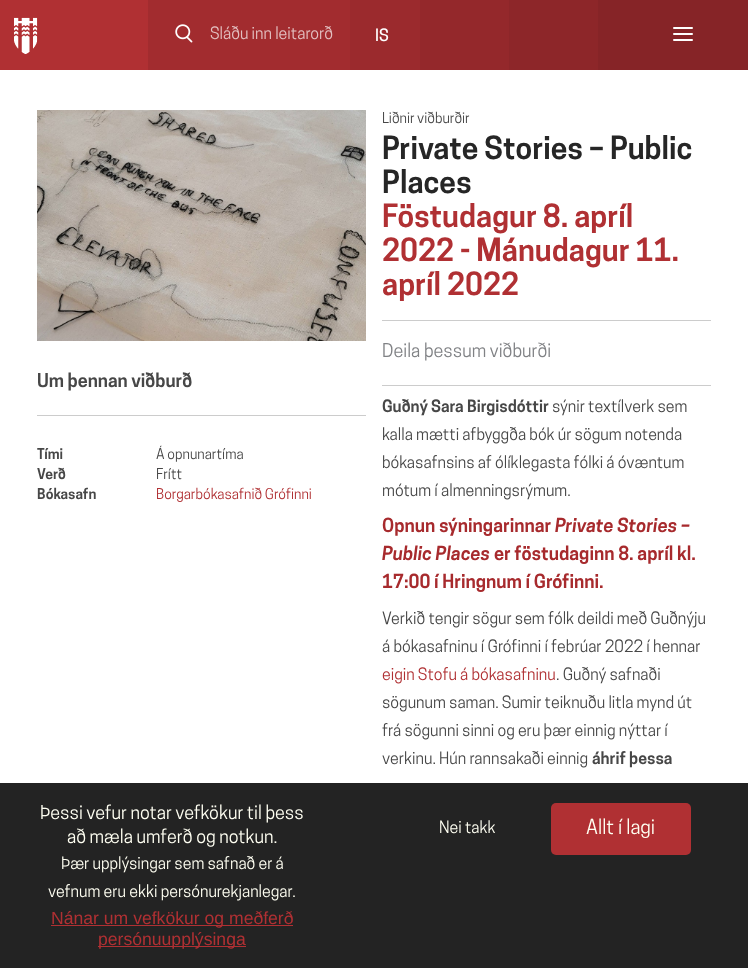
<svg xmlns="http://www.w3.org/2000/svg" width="748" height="968">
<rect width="100%" height="100%" fill="#fff"/>
<rect width="148" height="70" fill="#b03033"/>
<image x="14" y="17" width="24" height="37" href="media/1.png"/>
<rect x="148" width="202" height="70" fill="#a22c2f"/>
<image x="175" y="24" width="18" height="19" href="media/2.png"/>
<text x="210" y="39" style="font-family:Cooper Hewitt;font-size:16px;fill:#e3c0c1">Sláðu inn leitarorð</text>
<rect x="350" width="70" height="70" fill="#9b2a2d"/>
<text x="375" y="41" style="font-family:Cooper Hewitt;font-size:16px;font-weight:500;fill:#fff">IS</text>
<rect x="420" width="89" height="70" fill="#94282b"/>
<rect x="509" width="89" height="70" fill="#8d2629"/>
<rect x="598" width="150" height="70" fill="#862427"/>
<rect x="673" y="27" width="20" height="2" rx="1" fill="#fff"/>
<rect x="673" y="33" width="20" height="2" rx="1" fill="#fff"/>
<rect x="673" y="39" width="20" height="2" rx="1" fill="#fff"/>
<image x="37" y="110" width="329" height="231" href="media/3.png"/>
<rect x="37" y="415" width="329" height="1" fill="#ccc"/>
<text x="37" y="387" style="font-family:Cooper Hewitt;font-size:18px;font-weight:600;fill:#474747">Um þennan viðburð</text>
<text x="37" y="459" style="font-family:Cooper Hewitt;font-size:14px;font-weight:600;fill:#474747">Tími</text>
<text x="156" y="459" style="font-family:Cooper Hewitt;font-size:14px;fill:#474747">Á opnunartíma</text>
<text x="37" y="479" style="font-family:Cooper Hewitt;font-size:14px;font-weight:600;fill:#474747">Verð</text>
<text x="156" y="479" style="font-family:Cooper Hewitt;font-size:14px;fill:#474747">Frítt</text>
<text x="37" y="499" style="font-family:Cooper Hewitt;font-size:14px;font-weight:600;fill:#474747">Bókasafn</text>
<text x="156" y="499" style="font-family:Cooper Hewitt;font-size:14px;fill:#b03033">Borgarbókasafnið Grófinni</text>
<text x="382" y="123" style="font-family:Cooper Hewitt;font-size:14px;fill:#474747">Liðnir viðburðir</text>
<text x="382" y="159" style="font-family:Cooper Hewitt;font-size:30px;font-weight:600;fill:#262626">Private Stories – Public</text>
<text x="382" y="193" style="font-family:Cooper Hewitt;font-size:30px;font-weight:600;fill:#262626">Places</text>
<rect x="382" y="320" width="329" height="1" fill="#ccc"/>
<text x="382" y="227" style="font-family:Cooper Hewitt;font-size:30px;font-weight:600;fill:#b03033">Föstudagur 8. apríl</text>
<text x="382" y="261" style="font-family:Cooper Hewitt;font-size:30px;font-weight:600;fill:#b03033">2022 - Mánudagur 11.</text>
<text x="382" y="295" style="font-family:Cooper Hewitt;font-size:30px;font-weight:600;fill:#b03033">apríl 2022</text>
<rect x="382" y="385" width="329" height="1" fill="#ccc"/>
<text x="382" y="357" style="font-family:Cooper Hewitt;font-size:18px;fill:#808285">Deila þessum viðburði</text>
<text x="382" y="412" style="font-family:Cooper Hewitt;font-size:16px;font-weight:600;fill:#474747">Guðný Sara Birgisdóttir</text>
<text x="552" y="412" style="font-family:Cooper Hewitt;font-size:16px;fill:#474747">sýnir textílverk sem</text>
<text x="382" y="440" style="font-family:Cooper Hewitt;font-size:16px;fill:#474747">kalla mætti afbyggða bók úr sögum notenda</text>
<text x="382" y="468" style="font-family:Cooper Hewitt;font-size:16px;fill:#474747">bókasafnsins af ólíklegasta fólki á óvæntum</text>
<text x="382" y="496" style="font-family:Cooper Hewitt;font-size:16px;fill:#474747">mótum í almenningsrýmum.</text>
<text x="382" y="532" style="font-family:Cooper Hewitt;font-size:18.25px;font-weight:600;fill:#a72a2d">Opnun sýningarinnar</text>
<text x="555" y="532" style="font-family:Cooper Hewitt;font-size:18.25px;font-weight:600;font-style:italic;fill:#a72a2d">Private Stories –</text>
<text x="382" y="560" style="font-family:Cooper Hewitt;font-size:18.25px;font-weight:600;font-style:italic;fill:#a72a2d">Public Places</text>
<text x="494" y="560" style="font-family:Cooper Hewitt;font-size:18.25px;font-weight:600;fill:#a72a2d">er föstudaginn 8. apríl kl.</text>
<text x="382" y="588" style="font-family:Cooper Hewitt;font-size:18.25px;font-weight:600;fill:#a72a2d">17:00 í Hringnum í Grófinni.</text>
<text x="382" y="624" style="font-family:Cooper Hewitt;font-size:16px;fill:#474747">Verkið tengir sögur sem fólk deildi með Guðnýju</text>
<text x="382" y="652" style="font-family:Cooper Hewitt;font-size:16px;fill:#474747">á bókasafninu í Grófinni í febrúar 2022 í hennar</text>
<text x="382" y="680" style="font-family:Cooper Hewitt;font-size:16px;fill:#b03033">eigin Stofu á bókasafninu</text>
<text x="556" y="680" style="font-family:Cooper Hewitt;font-size:16px;fill:#474747">. Guðný safnaði</text>
<text x="382" y="708" style="font-family:Cooper Hewitt;font-size:16px;fill:#474747">sögunum saman. Sumir teiknuðu litla mynd út</text>
<text x="382" y="736" style="font-family:Cooper Hewitt;font-size:16px;fill:#474747">frá sögunni sinni og eru þær einnig nýttar í</text>
<text x="382" y="764" style="font-family:Cooper Hewitt;font-size:16px;fill:#474747">verkinu. Hún rannsakaði einnig</text>
<text x="592" y="764" style="font-family:Cooper Hewitt;font-size:16px;font-weight:600;fill:#474747">áhrif þessa</text>
<rect y="783" width="748" height="185" fill="#232323"/>
<text x="40" y="819" style="font-family:Cooper Hewitt;font-size:18px;fill:#fffff2">Þessi vefur notar vefkökur til þess</text>
<text x="67" y="843" style="font-family:Cooper Hewitt;font-size:18px;fill:#fffff2">að mæla umferð og notkun.</text>
<text x="61" y="869" style="font-family:Cooper Hewitt;font-size:16px;fill:#fffff2">Þær upplýsingar sem safnað er á</text>
<text x="48" y="897" style="font-family:Cooper Hewitt;font-size:16px;fill:#fffff2">vefnum eru ekki persónurekjanlegar.</text>
<rect x="51" y="925" width="242" height="1" fill="#b03033"/>
<text x="51" y="924" style="font-family:Liberation Sans;font-size:17.6px;fill:#b03033">Nánar um vefkökur og meðferð</text>
<rect x="98" y="946" width="148" height="1" fill="#b03033"/>
<text x="98" y="945" style="font-family:Liberation Sans;font-size:17.6px;fill:#b03033">persónuupplýsinga</text>
<text x="439" y="833" style="font-family:Cooper Hewitt;font-size:16px;fill:#fffff2">Nei takk</text>
<rect x="551" y="803" width="140" height="52" rx="5" fill="#b03033"/>
<text x="586" y="834" style="font-family:Cooper Hewitt;font-size:19.5px;fill:#fffff2">Allt í lagi</text>
</svg>
